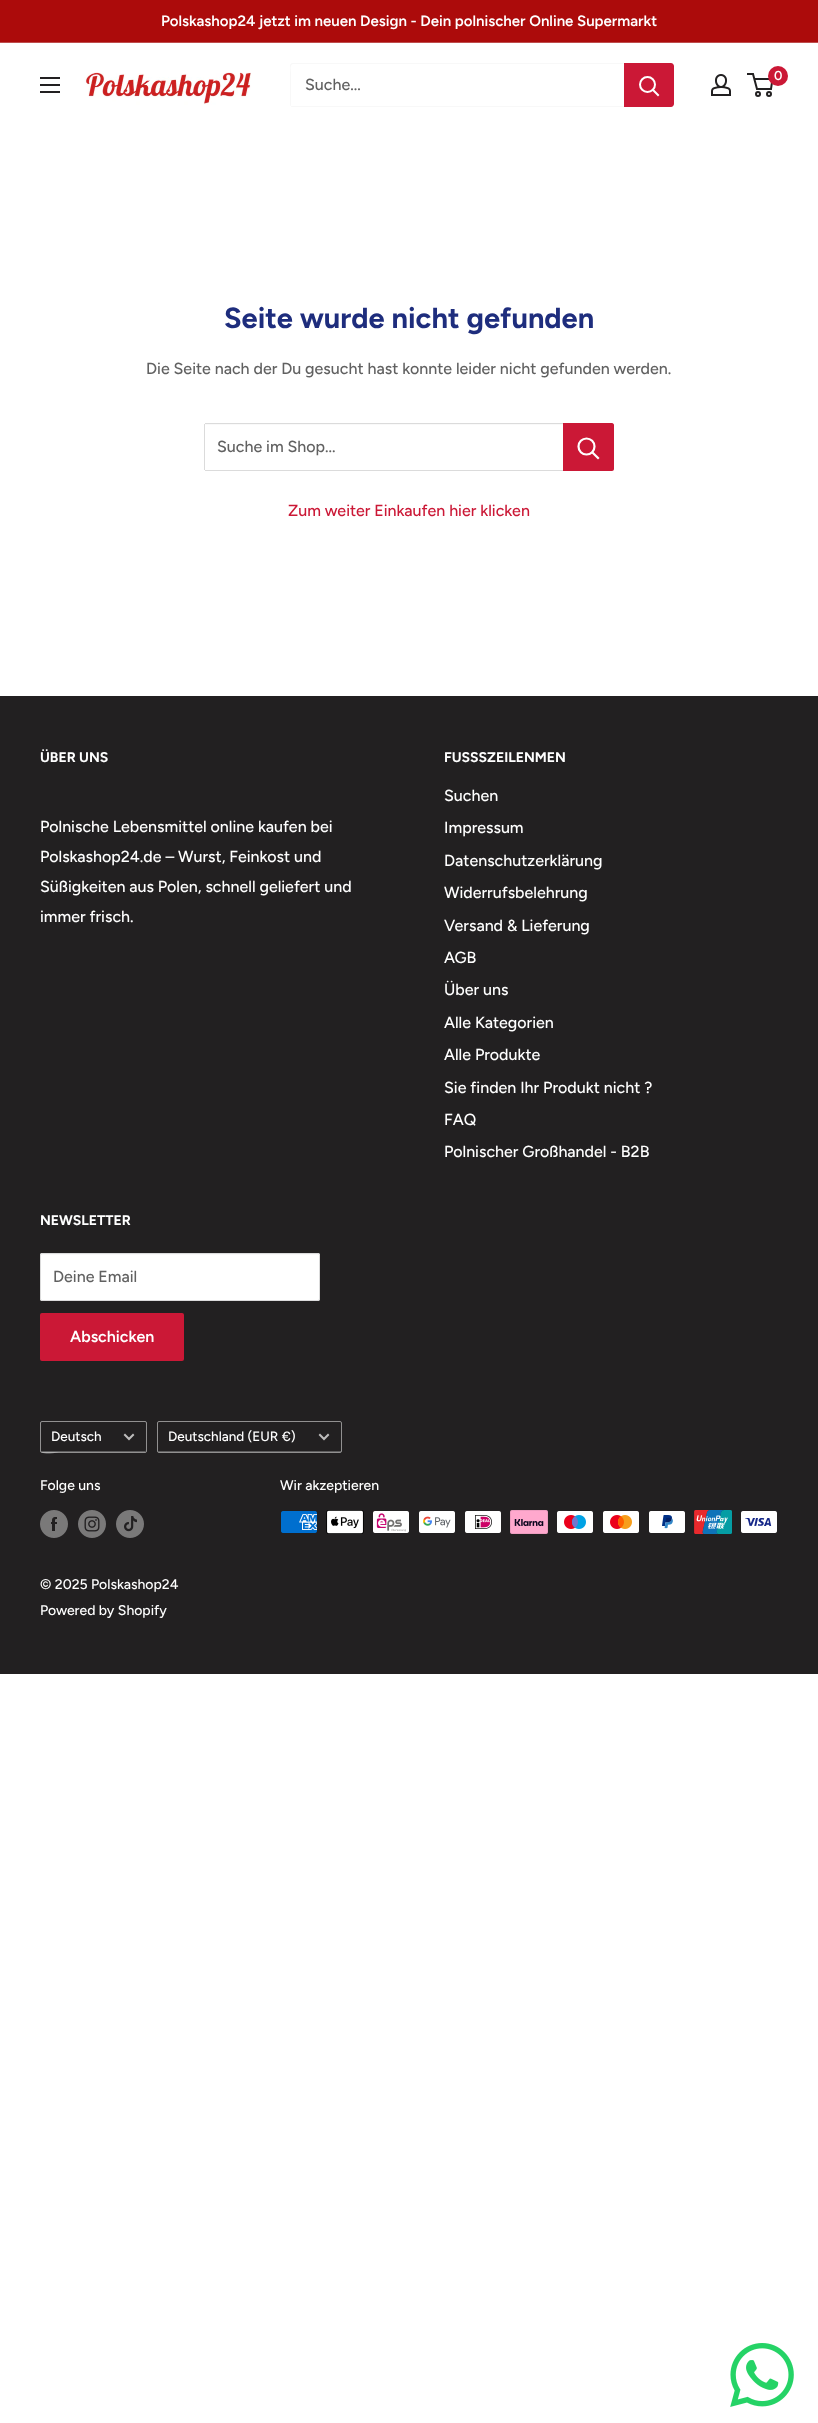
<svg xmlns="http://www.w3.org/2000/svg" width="818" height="2423">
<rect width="100%" height="100%" fill="#fff"/>
<rect width="818" height="42" fill="#ac0b0b"/>
<rect y="42" width="818" height="1" fill="#be4d4d"/>
<text x="161" y="26" style="font-family:Figtree;font-size:15px;font-weight:600;fill:#fff">Polskashop24 jetzt im neuen Design - Dein polnischer Online Supermarkt</text>
<image x="40" y="77" width="20" height="16" href="media/1.png"/>
<image x="84" y="72" width="167" height="33" href="media/2.png"/>
<path d="M291 106c0 1 1 1 2 1h378c2 0 3-1 3-3v-38c0-1 0-2-1-2v33c0 2 2 9-3 9z" fill="#f8f8f8"/>
<path d="M294 64h379c0-1-1-1-2-1h-378c-2 0-3 1-3 3v38c0 1 0 2 1 2v-33c0-2-2-9 3-9z" fill="#f8f8f8"/>
<text x="305" y="90" style="font-family:Figtree;font-size:16px;font-weight:500;fill:#616161">Suche...</text>
<path d="M624 63h47c1.5 0 3 1.5 3 3v38c0 1.5-1.5 3-3 3h-47z" fill="#cb1836"/>
<path d="M658 95l-5-5" fill="none" stroke="#fff" stroke-width="2" stroke-linecap="square"/>
<circle cx="647.5" cy="84.5" r="7.5" fill="none" stroke="#fff" stroke-width="2"/>
<image x="711" y="74" width="20" height="22" href="media/3.png"/>
<circle cx="758" cy="94" r="2" fill="none" stroke="#222021" stroke-width="2"/>
<circle cx="769" cy="94" r="2" fill="none" stroke="#222021" stroke-width="2"/>
<path d="M754.5 79h18l-1.5 10h-14l-4-15h-6" fill="none" stroke="#222021" stroke-width="2"/>
<circle cx="778" cy="76" r="10" fill="#cb1836"/>
<text x="774" y="80" style="font-family:Figtree;font-size:13px;font-weight:600;fill:#fff">0</text>
<text x="224" y="328" style="font-family:Figtree;font-size:29px;font-weight:bold;fill:#1e2d7d">Seite wurde nicht gefunden</text>
<text x="146" y="374" style="font-family:Figtree;font-size:16px;font-weight:500;fill:#616161">Die Seite nach der Du gesucht hast konnte leider nicht gefunden werden.</text>
<path d="M206 425h357v-1h-357c-1 0-1 1-1 2c0-1 0-1 1-1z" fill="#f9f9f9"/>
<rect x="205" y="423" width="358" height="1" fill="#dbdbdb"/>
<rect x="205" y="470" width="358" height="1" fill="#dbdbdb"/>
<rect x="204" y="424" width="1" height="46" fill="#dbdbdb"/>
<text x="217" y="452" style="font-family:Figtree;font-size:16px;font-weight:500;fill:#616161">Suche im Shop...</text>
<path d="M563 423h49c1 0 2 1 2 2v44c0 1-1 2-2 2h-49z" fill="#cb1836"/>
<path d="M598 458l-5.5-5.5" fill="none" stroke="#fff" stroke-width="2.2" stroke-linecap="square"/>
<circle cx="586.5" cy="446.5" r="8" fill="none" stroke="#fff" stroke-width="2.2"/>
<text x="288" y="516" style="font-family:Figtree;font-size:16px;font-weight:500;fill:#cb1836">Zum weiter Einkaufen hier klicken</text>
<rect y="696" width="818" height="978" fill="#222021"/>
<text x="40" y="762" style="font-family:Figtree;font-size:14px;font-weight:bold;fill:#fff">ÜBER UNS</text>
<text x="40" y="832" style="font-family:Figtree;font-size:16px;font-weight:500;fill:#fff">Polnische Lebensmittel online kaufen bei</text>
<text x="40" y="862" style="font-family:Figtree;font-size:16px;font-weight:500;fill:#fff">Polskashop24.de – Wurst, Feinkost und</text>
<text x="40" y="892" style="font-family:Figtree;font-size:16px;font-weight:500;fill:#fff">Süßigkeiten aus Polen, schnell geliefert und</text>
<text x="40" y="922" style="font-family:Figtree;font-size:16px;font-weight:500;fill:#fff">immer frisch.</text>
<text x="444" y="762" style="font-family:Figtree;font-size:14px;font-weight:bold;fill:#fff">FUSSSZEILENMEN</text>
<text x="444" y="801" style="font-family:Figtree;font-size:16px;font-weight:500;fill:#fff">Suchen</text>
<text x="444" y="833" style="font-family:Figtree;font-size:16px;font-weight:500;fill:#fff">Impressum</text>
<text x="444" y="866" style="font-family:Figtree;font-size:16px;font-weight:500;fill:#fff">Datenschutzerklärung</text>
<text x="444" y="898" style="font-family:Figtree;font-size:16px;font-weight:500;fill:#fff">Widerrufsbelehrung</text>
<text x="444" y="931" style="font-family:Figtree;font-size:16px;font-weight:500;fill:#fff">Versand &amp; Lieferung</text>
<text x="444" y="963" style="font-family:Figtree;font-size:16px;font-weight:500;fill:#fff">AGB</text>
<text x="444" y="995" style="font-family:Figtree;font-size:16px;font-weight:500;fill:#fff">Über uns</text>
<text x="444" y="1028" style="font-family:Figtree;font-size:16px;font-weight:500;fill:#fff">Alle Kategorien</text>
<text x="444" y="1060" style="font-family:Figtree;font-size:16px;font-weight:500;fill:#fff">Alle Produkte</text>
<text x="444" y="1093" style="font-family:Figtree;font-size:16px;font-weight:500;fill:#fff">Sie finden Ihr Produkt nicht ?</text>
<text x="444" y="1125" style="font-family:Figtree;font-size:16px;font-weight:500;fill:#fff">FAQ</text>
<text x="444" y="1157" style="font-family:Figtree;font-size:16px;font-weight:500;fill:#fff">Polnischer Großhandel - B2B</text>
<text x="40" y="1225" style="font-family:Figtree;font-size:14px;font-weight:bold;fill:#fff">NEWSLETTER</text>
<rect x="40" y="1253" width="280" height="48" rx="2" fill="#fff"/>
<path d="M42 1255h276c1 0 1 0 1 1c0-1 0-2-1-2h-276h-1v2c0-1 0-1 1-1z" fill="#f9f9f9"/>
<rect x="40.5" y="1253.5" width="279" height="47" rx="1.5" fill="none" stroke="#dbdbdb"/>
<text x="53" y="1282" style="font-family:Figtree;font-size:16px;font-weight:500;fill:#616161">Deine Email</text>
<rect x="40" y="1313" width="144" height="48" rx="2" fill="#cb1836"/>
<text x="70" y="1342" style="font-family:Figtree;font-size:16px;font-weight:600;fill:#fff">Abschicken</text>
<path d="M41 1450c0 7 18 2 18 2h86l1-2c0 1 0 1-1 1h-103c-1 0-1 0-1-1z" fill="#5d5c5d"/>
<rect x="40.5" y="1421.5" width="106" height="31" rx="1.5" fill="none" stroke="#ffffff80"/>
<text x="51" y="1441" style="font-family:Figtree;font-size:13.5px;font-weight:500;fill:#fff">Deutsch</text>
<path d="M133 1435l-4 4l-4-4" fill="none" stroke="#bdbcbc" stroke-width="2" stroke-linecap="square"/>
<path d="M158 1450c0 1 0 2 1 2h182v-2c0 1 0 1-1 1h-182z" fill="#5d5c5d"/>
<rect x="157.5" y="1421.5" width="184" height="31" rx="1.5" fill="none" stroke="#919090"/>
<text x="168" y="1441" style="font-family:Figtree;font-size:13.5px;font-weight:500;fill:#fff">Deutschland (EUR €)</text>
<path d="M328 1435l-4 4l-4-4" fill="none" stroke="#bdbcbc" stroke-width="2" stroke-linecap="square"/>
<text x="40" y="1490" style="font-family:Figtree;font-size:14px;font-weight:500;fill:#fff">Folge uns</text>
<image x="40" y="1510" width="28" height="28" href="media/4.png"/>
<image x="78" y="1510" width="28" height="28" href="media/5.png"/>
<image x="116" y="1510" width="28" height="28" href="media/6.png"/>
<text x="280" y="1490" style="font-family:Figtree;font-size:14px;font-weight:500;fill:#fff">Wir akzeptieren</text>
<image x="281" y="1511" width="36" height="22" href="media/7.png"/>
<image x="326" y="1510" width="38" height="24" href="media/8.png"/>
<image x="373" y="1511" width="36" height="22" href="media/9.png"/>
<image x="419" y="1511" width="36" height="22" href="media/10.png"/>
<image x="465" y="1511" width="36" height="22" href="media/11.png"/>
<image x="510" y="1510" width="38" height="24" href="media/12.png"/>
<image x="557" y="1511" width="36" height="22" href="media/13.png"/>
<image x="603" y="1511" width="36" height="22" href="media/14.png"/>
<image x="649" y="1511" width="36" height="22" href="media/15.png"/>
<image x="694" y="1510" width="38" height="24" href="media/16.png"/>
<image x="741" y="1511" width="36" height="22" href="media/17.png"/>
<text x="40" y="1589" style="font-family:Figtree;font-size:14px;font-weight:500;fill:#fff">© 2025 Polskashop24</text>
<text x="40" y="1615" style="font-family:Figtree;font-size:14px;font-weight:500;fill:#fff">Powered by Shopify</text>
<image x="730" y="2343" width="64" height="64" href="media/18.png"/>
</svg>
